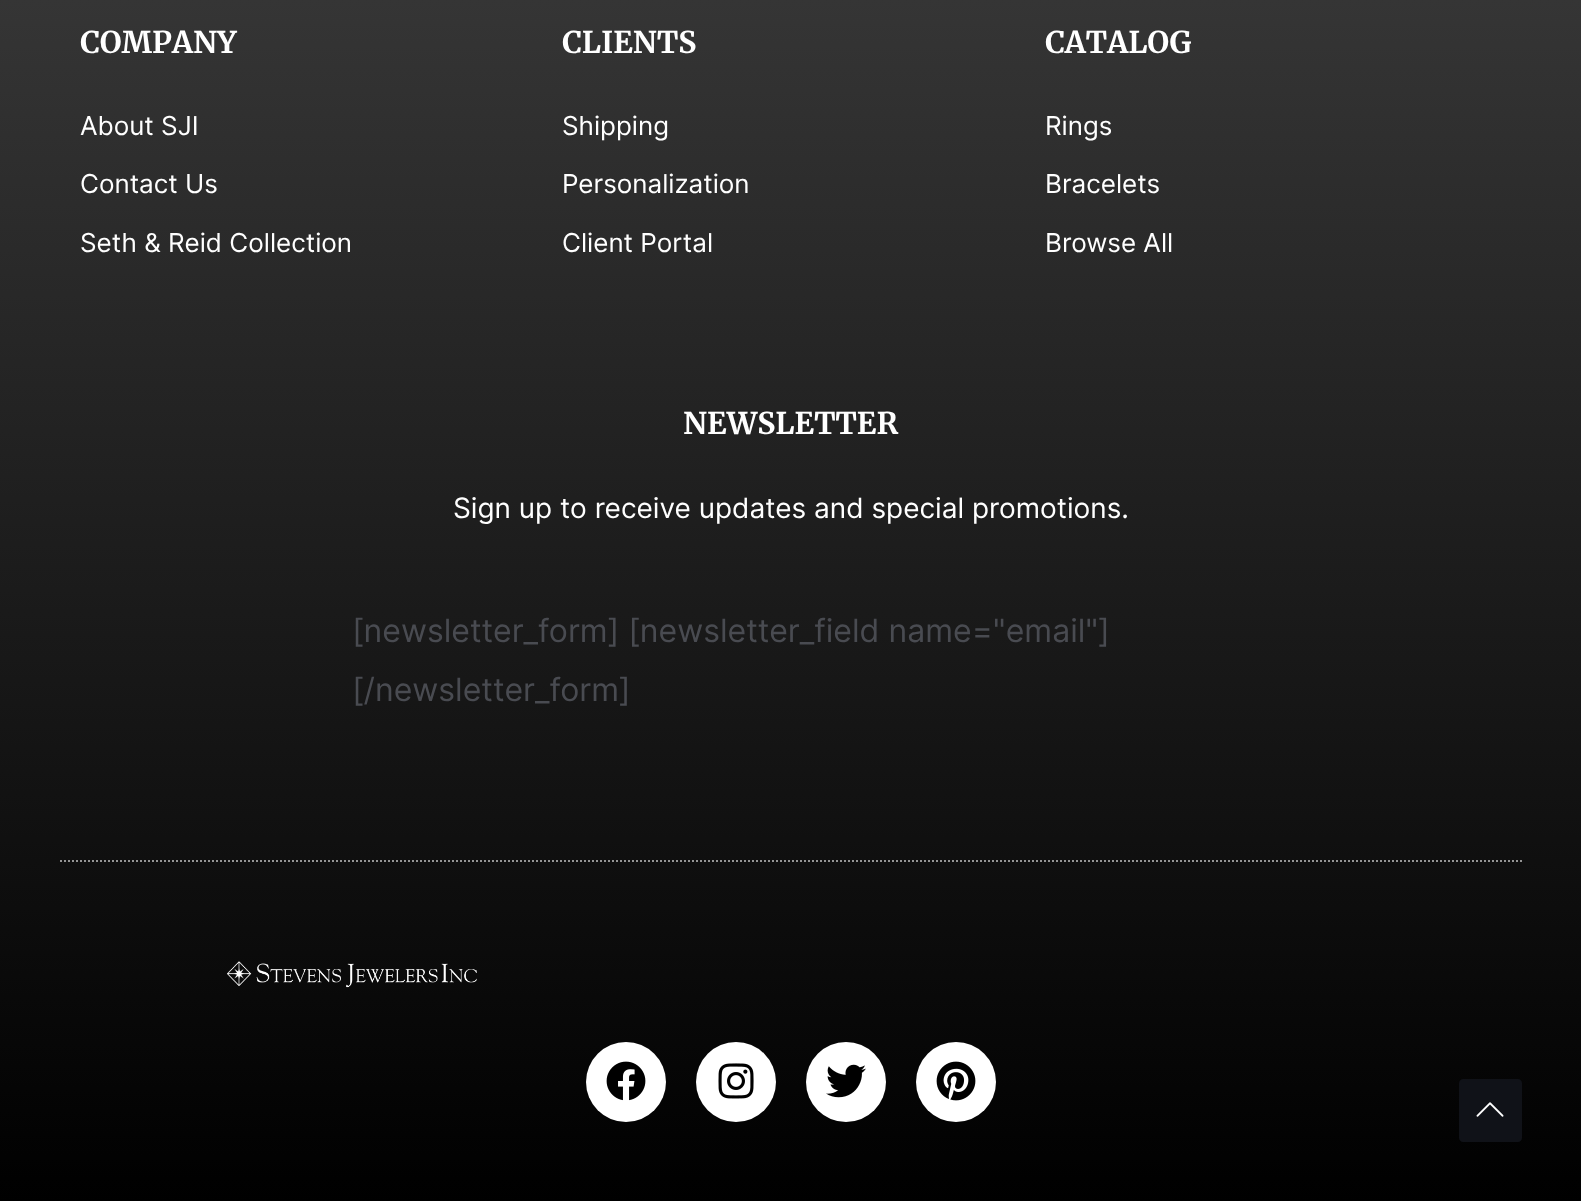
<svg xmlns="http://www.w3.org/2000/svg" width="1581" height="1201">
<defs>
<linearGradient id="g1" gradientUnits="userSpaceOnUse" x1="791" y1="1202" x2="791" y2="-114"><stop offset="0" stop-color="#000"/><stop offset="1" stop-color="#3a3a3a"/></linearGradient>
</defs>
<rect width="100%" height="100%" fill="#fff"/>
<rect width="1581" height="1201" fill="url(#g1)"/>
<text x="80" y="53" style="font-family:Merriweather;font-size:30px;font-weight:bold;fill:#fff">COMPANY</text>
<text x="80" y="135" style="font-family:Inter;font-size:26px;fill:#fff">About SJI</text>
<text x="80" y="193" style="font-family:Inter;font-size:26px;fill:#fff">Contact Us</text>
<text x="80" y="252" style="font-family:Inter;font-size:26px;fill:#fff">Seth &amp; Reid Collection</text>
<text x="562" y="53" style="font-family:Merriweather;font-size:30px;font-weight:bold;fill:#fff">CLIENTS</text>
<text x="562" y="135" style="font-family:Inter;font-size:26px;fill:#fff">Shipping</text>
<text x="562" y="193" style="font-family:Inter;font-size:26px;fill:#fff">Personalization</text>
<text x="562" y="252" style="font-family:Inter;font-size:26px;fill:#fff">Client Portal</text>
<text x="1045" y="53" style="font-family:Merriweather;font-size:30px;font-weight:bold;fill:#fff">CATALOG</text>
<text x="1045" y="135" style="font-family:Inter;font-size:26px;fill:#fff">Rings</text>
<text x="1045" y="193" style="font-family:Inter;font-size:26px;fill:#fff">Bracelets</text>
<text x="1045" y="252" style="font-family:Inter;font-size:26px;fill:#fff">Browse All</text>
<text x="683" y="434" style="font-family:Merriweather;font-size:30px;font-weight:bold;fill:#fff">NEWSLETTER</text>
<text x="453" y="518" style="font-family:Inter;font-size:28px;fill:#fff">Sign up to receive updates and special promotions.</text>
<text x="352" y="642" style="font-family:Inter;font-size:32px;fill:#494b51">[newsletter_form] [newsletter_field name="email"]</text>
<text x="352" y="701" style="font-family:Inter;font-size:32px;fill:#494b51">[/newsletter_form]</text>
<path d="M60 861h1462" fill="none" stroke="#959595" stroke-width="2" stroke-dasharray="2 2"/>
<image x="227" y="961" width="250" height="27" href="media/1.png"/>
<circle cx="626" cy="1082" r="40" fill="#fff"/>
<image x="606" y="1061" width="40" height="40" href="media/2.png"/>
<circle cx="736" cy="1082" r="40" fill="#fff"/>
<image x="718" y="1063" width="36" height="36" href="media/3.png"/>
<circle cx="846" cy="1082" r="40" fill="#fff"/>
<image x="826" y="1064" width="40" height="34" href="media/4.png"/>
<circle cx="956" cy="1082" r="40" fill="#fff"/>
<image x="936" y="1061" width="40" height="40" href="media/5.png"/>
<path d="M1518 1142h-55c-2 0-4-2-4-4v-55c0-2 2-4 4-4h55c2 0 4 2 4 4v55c0 2-2 4-4 4z" fill="#101218"/>
<image x="1476" y="1102" width="28" height="15" href="media/6.png"/>
</svg>
